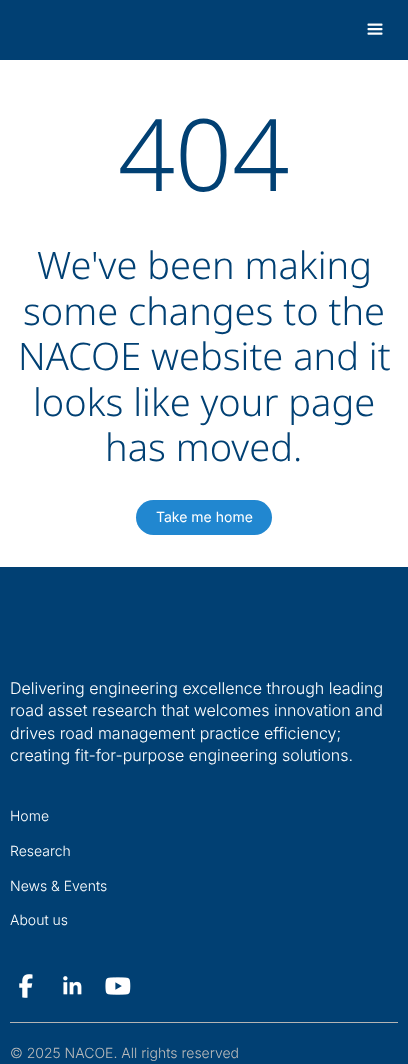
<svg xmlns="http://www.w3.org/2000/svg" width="408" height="1064">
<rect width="100%" height="100%" fill="#fff"/>
<rect width="408" height="60" fill="#014073"/>
<image x="367" y="23" width="16" height="12" href="media/1.png"/>
<text x="118" y="191" style="font-family:Noto Sans;font-size:100px;font-weight:300;fill:#014073">404</text>
<text x="37" y="279" style="font-family:Noto Sans;font-size:38px;font-weight:300;fill:#014073">We've been making</text>
<text x="23" y="325" style="font-family:Noto Sans;font-size:38px;font-weight:300;fill:#014073">some changes to the</text>
<text x="18" y="370" style="font-family:Noto Sans;font-size:38px;font-weight:300;fill:#014073">NACOE website and it</text>
<text x="33" y="416" style="font-family:Noto Sans;font-size:38px;font-weight:300;fill:#014073">looks like your page</text>
<text x="105" y="461" style="font-family:Noto Sans;font-size:38px;font-weight:300;fill:#014073">has moved.</text>
<rect x="136" y="500" width="136" height="35" rx="17.5" fill="#2187d0"/>
<text x="156" y="522" style="font-family:Inter;font-size:14px;fill:#fff">Take me home</text>
<rect y="567" width="408" height="497" fill="#014073"/>
<text x="10" y="694" style="font-family:Inter;font-size:16px;font-weight:300;fill:#fff">Delivering engineering excellence through leading</text>
<text x="10" y="716" style="font-family:Inter;font-size:16px;font-weight:300;fill:#fff">road asset research that welcomes innovation and</text>
<text x="10" y="739" style="font-family:Inter;font-size:16px;font-weight:300;fill:#fff">drives road management practice efficiency;</text>
<text x="10" y="761" style="font-family:Inter;font-size:16px;font-weight:300;fill:#fff">creating fit-for-purpose engineering solutions.</text>
<text x="10" y="821" style="font-family:Inter;font-size:14px;font-weight:300;fill:#fff">Home</text>
<text x="10" y="856" style="font-family:Inter;font-size:14px;font-weight:300;fill:#fff">Research</text>
<text x="10" y="891" style="font-family:Inter;font-size:14px;font-weight:300;fill:#fff">News &amp; Events</text>
<text x="10" y="925" style="font-family:Inter;font-size:14px;font-weight:300;fill:#fff">About us</text>
<image x="19" y="974" width="14" height="24" href="media/2.png"/>
<image x="63" y="976" width="19" height="19" href="media/3.png"/>
<image x="105" y="977" width="26" height="18" href="media/4.png"/>
<rect x="10" y="1022" width="388" height="1" fill="#b4b4b4"/>
<text x="10" y="1058" style="font-family:Inter;font-size:14px;font-weight:300;fill:#bcbcbc">© 2025 NACOE. All rights reserved</text>
</svg>
